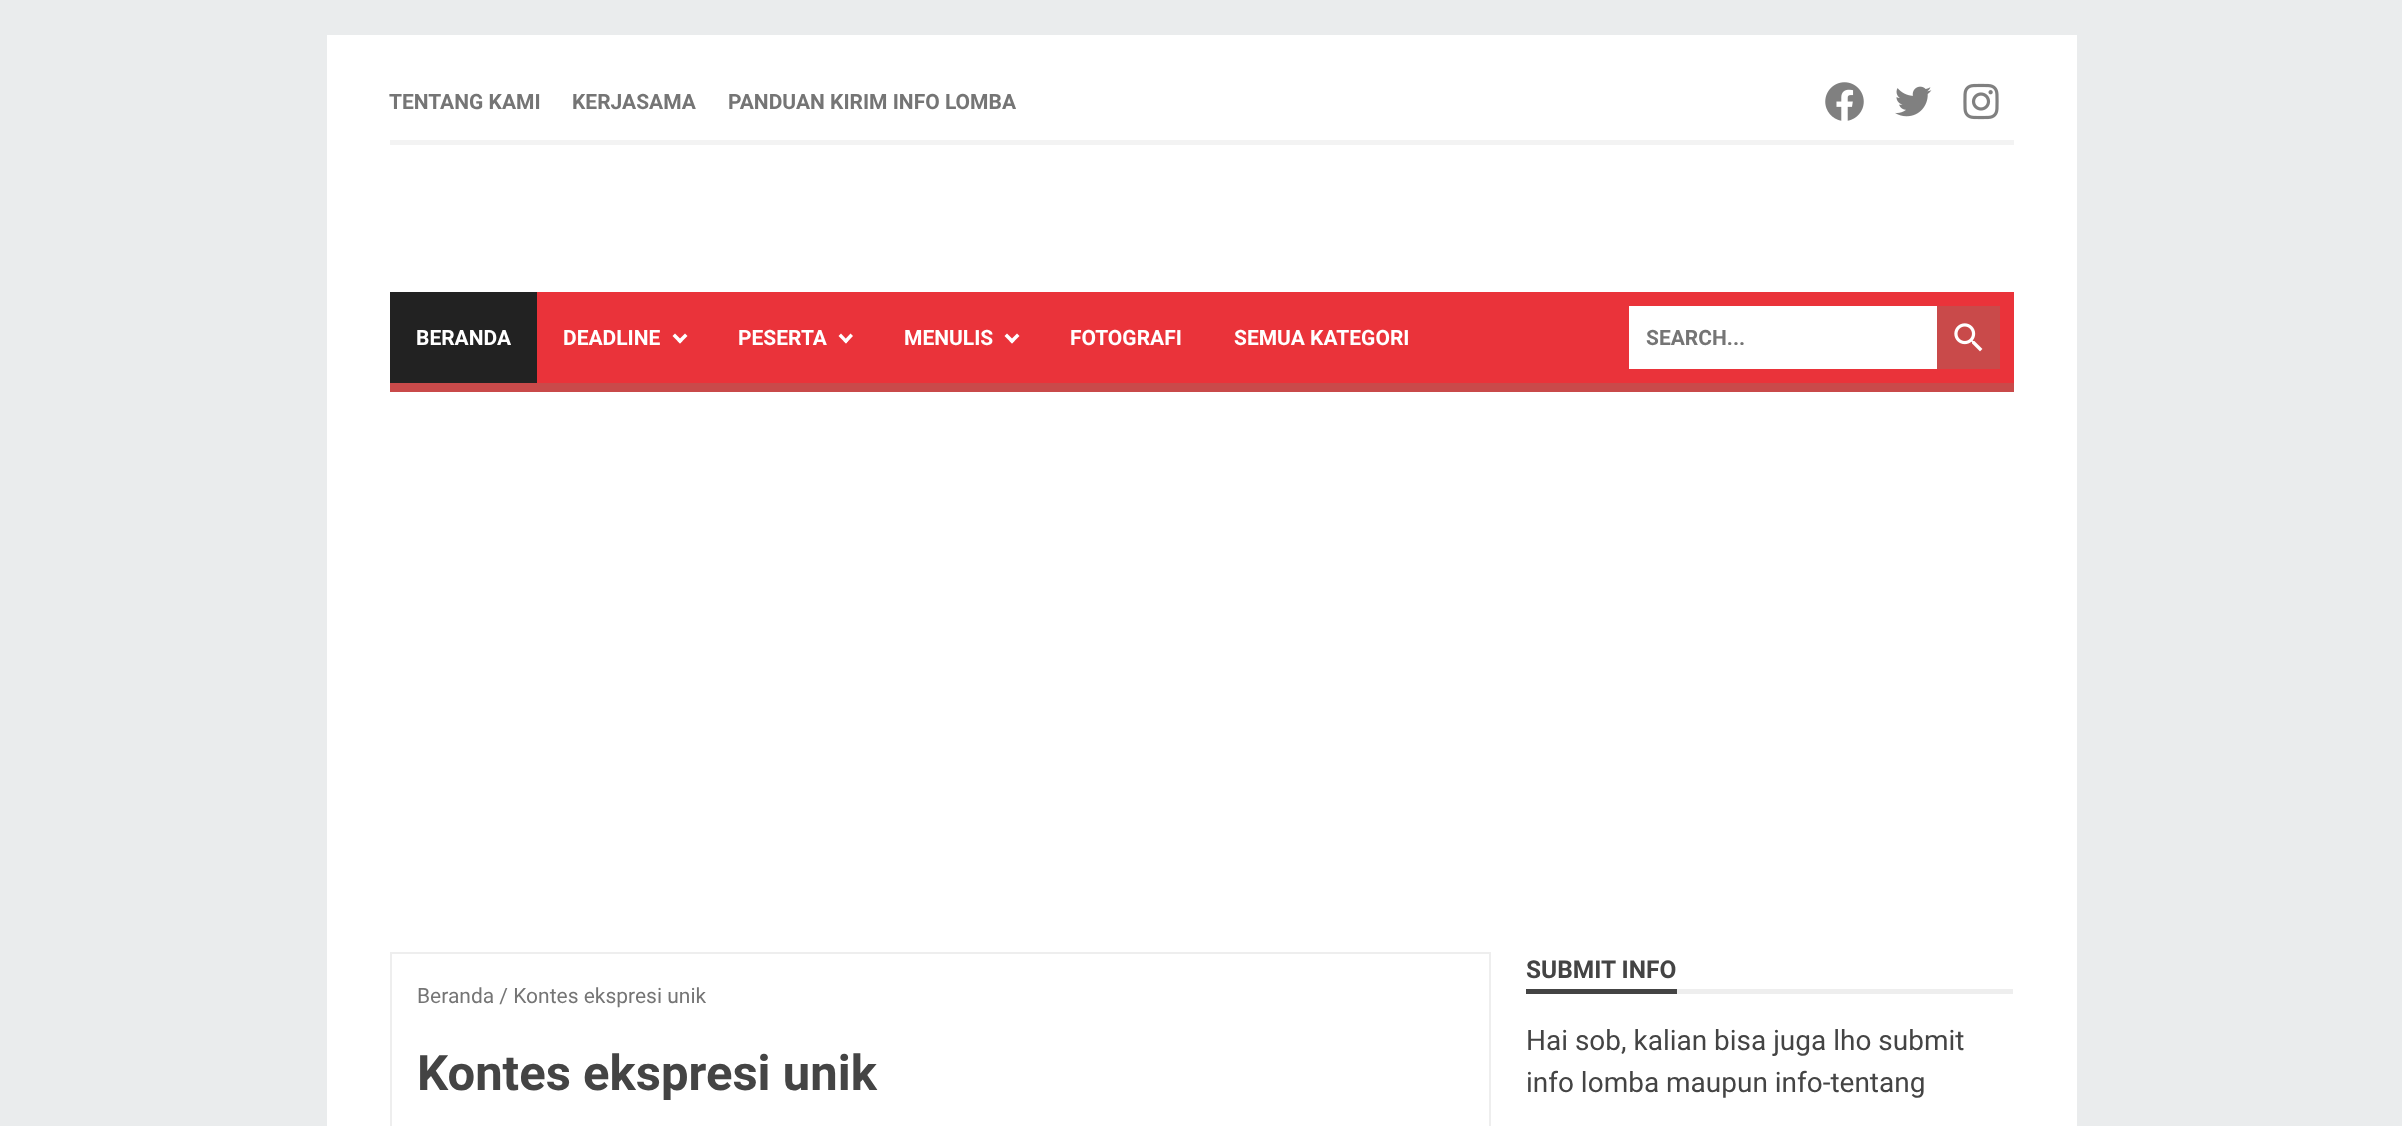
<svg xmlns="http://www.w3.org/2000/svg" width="2402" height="1126">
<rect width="100%" height="100%" fill="#eaeced"/>
<rect x="327" y="35" width="1750" height="1091" fill="#fff"/>
<rect x="390" y="140" width="1624" height="5" fill="#f3f3f3"/>
<text x="389" y="109" style="font-family:Roboto;font-size:21px;font-weight:bold;fill:#757575">TENTANG KAMI</text>
<text x="572" y="109" style="font-family:Roboto;font-size:21px;font-weight:bold;fill:#757575">KERJASAMA</text>
<text x="728" y="109" style="font-family:Roboto;font-size:21px;font-weight:bold;fill:#757575">PANDUAN KIRIM INFO LOMBA</text>
<image x="1825" y="82" width="39" height="39" href="media/1.png"/>
<image x="1895" y="86" width="37" height="31" href="media/2.png"/>
<image x="1963" y="83" width="36" height="37" href="media/3.png"/>
<rect x="537" y="292" width="1477" height="91" fill="#ea333a"/>
<rect x="390" y="292" width="147" height="91" fill="#222"/>
<text x="416" y="345" style="font-family:Roboto;font-size:21px;font-weight:bold;fill:#fff">BERANDA</text>
<text x="563" y="345" style="font-family:Roboto;font-size:21px;font-weight:bold;fill:#fff">DEADLINE</text>
<path d="M677.5 341l7.5-7.5l2.5 2.5l-7.5 7.5z" fill="#fff"/>
<path d="M672.5 336l2.5-2.5l7.5 7.5l-2.5 2.5z" fill="#fff"/>
<text x="738" y="345" style="font-family:Roboto;font-size:21px;font-weight:bold;fill:#fff">PESERTA</text>
<path d="M843.5 341l7-7.5l2.5 2.5l-7 7.5z" fill="#fff"/>
<path d="M838.5 336l2.5-2.5l7 7.5l-2 2.5z" fill="#fff"/>
<text x="904" y="345" style="font-family:Roboto;font-size:21px;font-weight:bold;fill:#fff">MENULIS</text>
<path d="M1009.5 341l7.5-7.5l2.5 2.5l-7.5 7.5z" fill="#fff"/>
<path d="M1004.5 336l2.5-2.5l7.5 7.5l-2.5 2.5z" fill="#fff"/>
<text x="1070" y="345" style="font-family:Roboto;font-size:21px;font-weight:bold;fill:#fff">FOTOGRAFI</text>
<text x="1234" y="345" style="font-family:Roboto;font-size:21px;font-weight:bold;fill:#fff">SEMUA KATEGORI</text>
<rect x="1629" y="306" width="308" height="63" fill="#fff"/>
<text x="1646" y="345" style="font-family:Roboto;font-size:21px;font-weight:bold;fill:#757575">SEARCH...</text>
<rect x="1937" y="306" width="63" height="63" fill="#c94a4a"/>
<image x="1954" y="323" width="29" height="29" href="media/4.png"/>
<rect x="390" y="383" width="1624" height="9" fill="#c94a4a"/>
<rect x="391" y="953" width="1099" height="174" fill="none" stroke="#eee" stroke-width="2"/>
<text x="417" y="1003" style="font-family:Roboto;font-size:21px;fill:#757575">Beranda / Kontes ekspresi unik</text>
<text x="417" y="1090" style="font-family:Roboto;font-size:49px;font-weight:bold;fill:#444">Kontes ekspresi unik</text>
<rect x="1677" y="989" width="336" height="5" fill="#eee"/>
<rect x="1526" y="989" width="151" height="5" fill="#444"/>
<text x="1526" y="978" style="font-family:Roboto;font-size:24.5px;font-weight:bold;fill:#444">SUBMIT INFO</text>
<text x="1526" y="1050" style="font-family:Roboto;font-size:28px;fill:#444">Hai sob, kalian bisa juga lho submit</text>
<text x="1526" y="1092" style="font-family:Roboto;font-size:28px;fill:#444">info lomba maupun info-tentang</text>
</svg>
